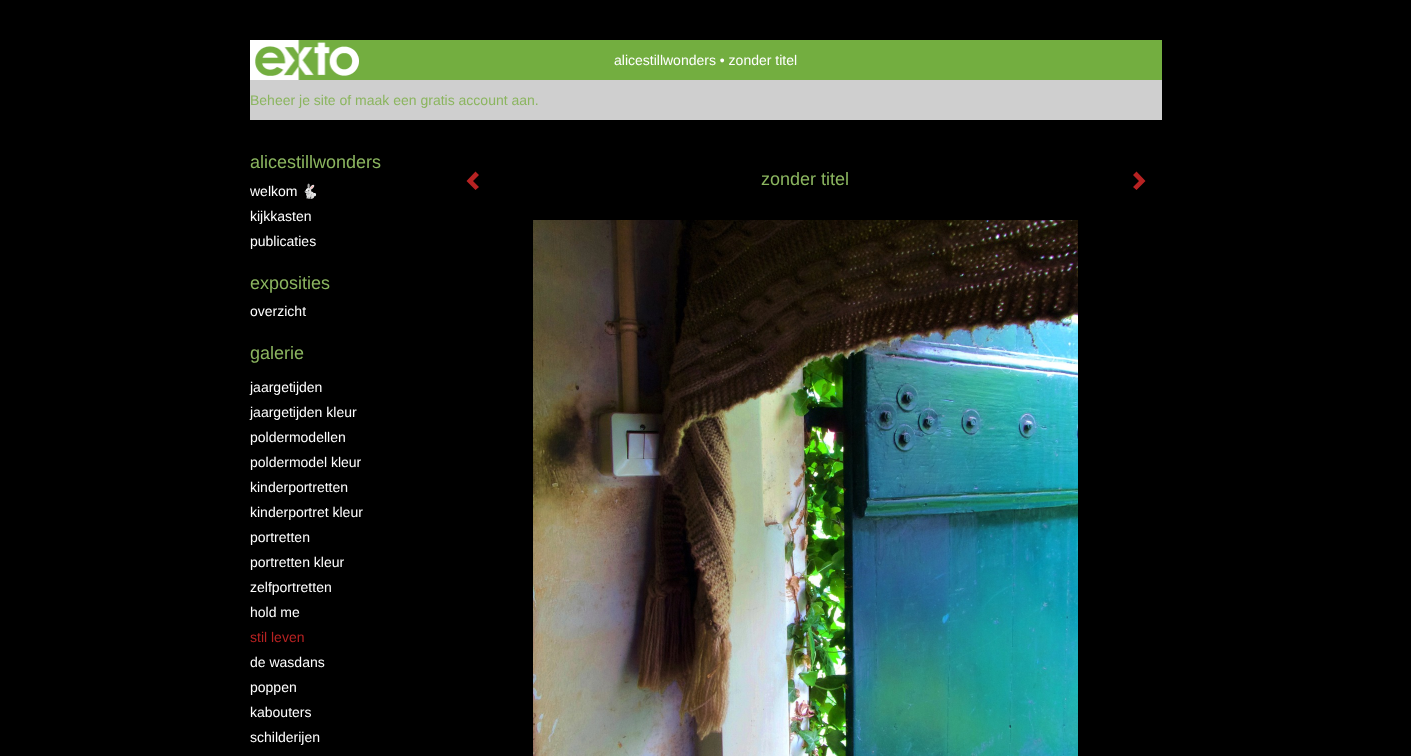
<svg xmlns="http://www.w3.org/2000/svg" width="1411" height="756">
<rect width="100%" height="100%" fill="#000"/>
<rect x="255" y="40" width="907" height="40" fill="#73ae40"/>
<image x="250" y="40" width="109" height="40" href="media/1.png"/>
<text x="614" y="65" style="font-family:Liberation Sans;font-size:14px;fill:#fff">alicestillwonders • zonder titel</text>
<rect x="250" y="80" width="912" height="40" fill="#cfcfcf"/>
<text x="250" y="105" style="font-family:Liberation Sans;font-size:14px;fill:#8bb55f">Beheer je site of maak een gratis account aan.</text>
<text x="250" y="168" style="font-family:Liberation Sans;font-size:18px;fill:#8bb55f">alicestillwonders</text>
<text x="250" y="196" style="font-family:Liberation Sans;font-size:14px;fill:#fff">welkom</text>
<text x="301" y="196" style="font-family:Noto Color Emoji;font-size:14px;fill:#fff">🐇</text>
<text x="250" y="221" style="font-family:Liberation Sans;font-size:14px;fill:#fff">kijkkasten</text>
<text x="250" y="246" style="font-family:Liberation Sans;font-size:14px;fill:#fff">publicaties</text>
<text x="250" y="289" style="font-family:Liberation Sans;font-size:18px;fill:#8bb55f">exposities</text>
<text x="250" y="316" style="font-family:Liberation Sans;font-size:14px;fill:#fff">overzicht</text>
<text x="250" y="359" style="font-family:Liberation Sans;font-size:18px;fill:#8bb55f">galerie</text>
<text x="250" y="392" style="font-family:Liberation Sans;font-size:14px;fill:#fff">jaargetijden</text>
<text x="250" y="417" style="font-family:Liberation Sans;font-size:14px;fill:#fff">jaargetijden kleur</text>
<text x="250" y="442" style="font-family:Liberation Sans;font-size:14px;fill:#fff">poldermodellen</text>
<text x="250" y="467" style="font-family:Liberation Sans;font-size:14px;fill:#fff">poldermodel kleur</text>
<text x="250" y="492" style="font-family:Liberation Sans;font-size:14px;fill:#fff">kinderportretten</text>
<text x="250" y="517" style="font-family:Liberation Sans;font-size:14px;fill:#fff">kinderportret kleur</text>
<text x="250" y="542" style="font-family:Liberation Sans;font-size:14px;fill:#fff">portretten</text>
<text x="250" y="567" style="font-family:Liberation Sans;font-size:14px;fill:#fff">portretten kleur</text>
<text x="250" y="592" style="font-family:Liberation Sans;font-size:14px;fill:#fff">zelfportretten</text>
<text x="250" y="617" style="font-family:Liberation Sans;font-size:14px;fill:#fff">hold me</text>
<text x="250" y="642" style="font-family:Liberation Sans;font-size:14px;fill:#b72222">stil leven</text>
<text x="250" y="667" style="font-family:Liberation Sans;font-size:14px;fill:#fff">de wasdans</text>
<text x="250" y="692" style="font-family:Liberation Sans;font-size:14px;fill:#fff">poppen</text>
<text x="250" y="717" style="font-family:Liberation Sans;font-size:14px;fill:#fff">kabouters</text>
<text x="250" y="742" style="font-family:Liberation Sans;font-size:14px;fill:#fff">schilderijen</text>
<path d="M479 175l-6 6l6 6l-3.5 3l-9-9l9-9.5z" fill="#b72222"/>
<text x="761" y="185" style="font-family:Liberation Sans;font-size:18px;fill:#8bb55f">zonder titel</text>
<path d="M1145.5 181l-9 9l-3.5-3l6-6l-6-6l3.5-3.5z" fill="#b72222"/>
<image x="533" y="220" width="545" height="536" href="media/2.png"/>
</svg>
